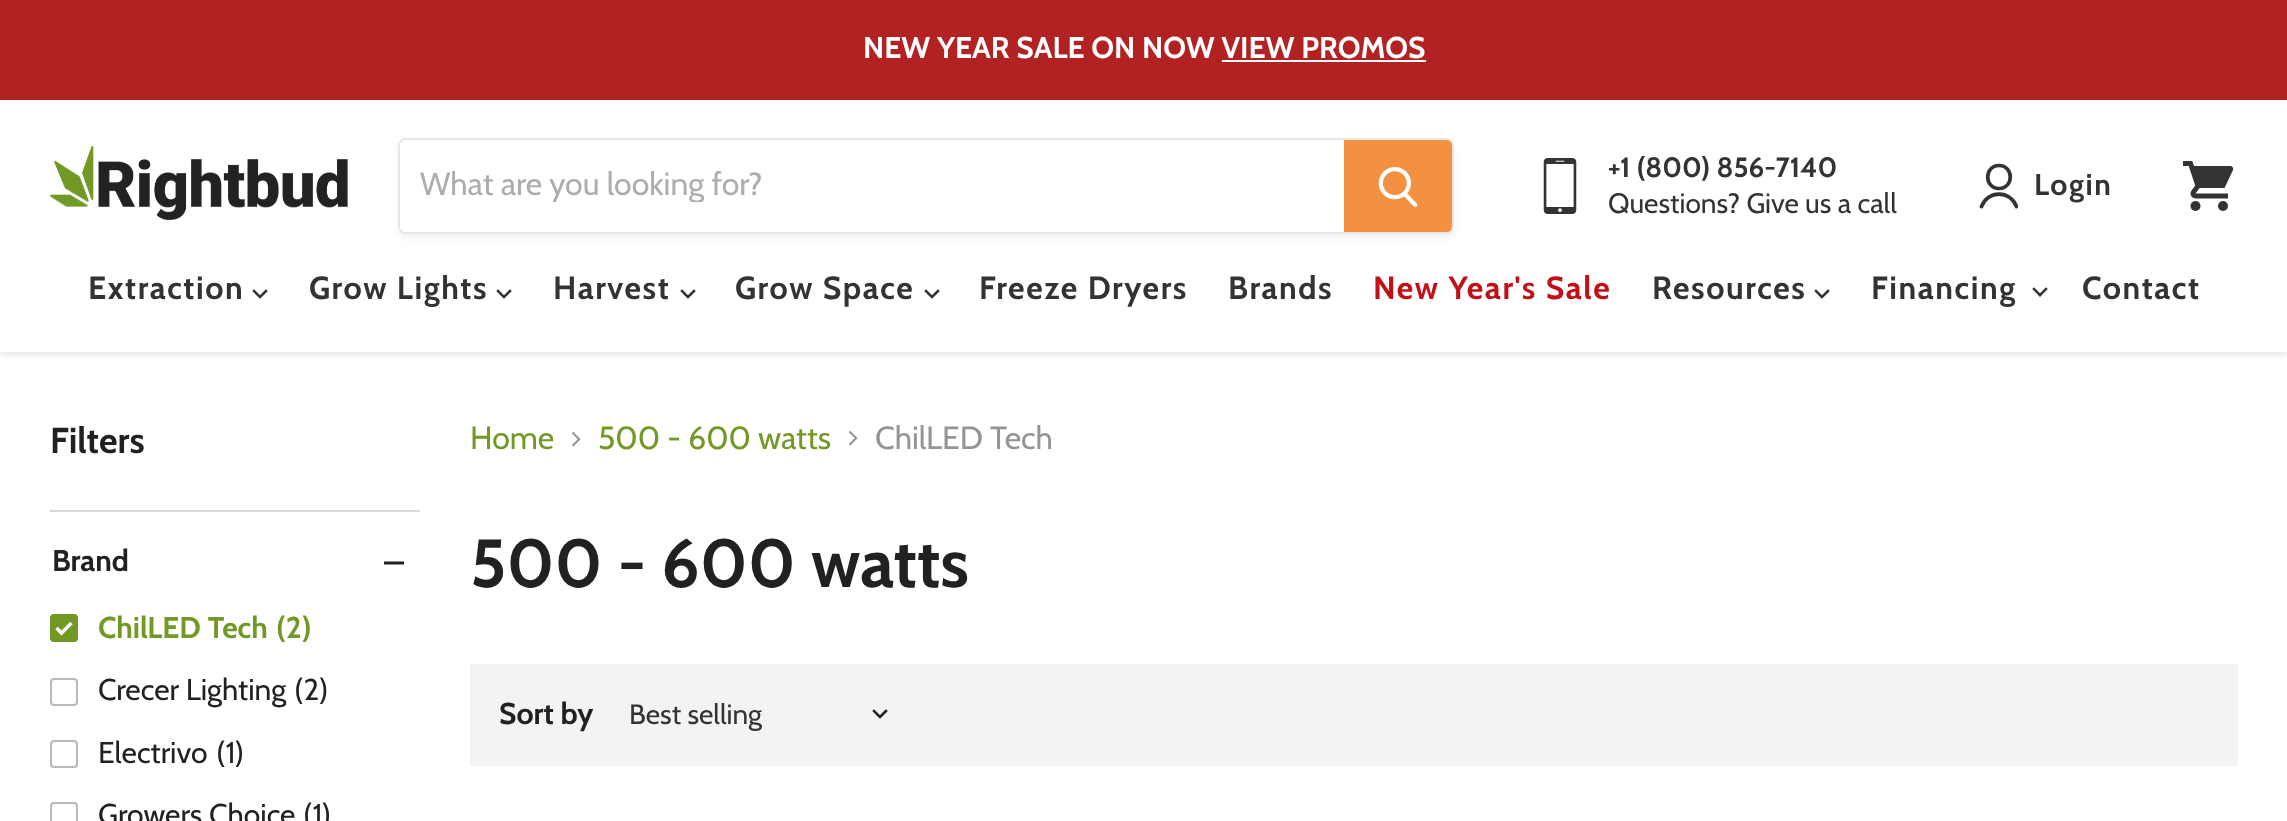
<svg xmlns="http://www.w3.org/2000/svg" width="2287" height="821">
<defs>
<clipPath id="clip1"><rect x="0" y="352" width="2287" height="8"/></clipPath>
<clipPath id="clip2"><path d="M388 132h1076v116h-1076zm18 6h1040c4.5 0 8 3.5 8 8v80c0 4.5-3.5 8-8 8h-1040c-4.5 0-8-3.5-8-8v-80c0-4.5 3.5-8 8-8z" clip-rule="evenodd"/></clipPath>
<clipPath id="clip3"><rect x="420" y="164" width="904" height="38"/></clipPath>
<clipPath id="clip4"><rect x="1978" y="162" width="40" height="48"/></clipPath>
<clipPath id="clip5"><rect x="384" y="552" width="20" height="14"/></clipPath>
</defs>
<rect width="100%" height="100%" fill="#fff"/>
<g clip-path="url(#clip1)">
<rect y="102" width="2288" height="252" fill="#80808040" filter="blur(4px)"/>
</g>
<rect width="2287" height="100" fill="#b22222"/>
<text x="863" y="58" style="font-family:Cabin;font-size:30px;font-weight:bold;fill:#fff">NEW YEAR SALE ON NOW VIEW PROMOS</text>
<rect x="1222" y="60" width="204" height="2" fill="#fff"/>
<image x="50" y="146" width="298" height="75" href="media/1.png"/>
<g clip-path="url(#clip2)">
<rect x="398" y="142" width="1056" height="96" rx="8" fill="#8080801c" filter="blur(3px)"/>
</g>
<rect x="399" y="139" width="1054" height="94" rx="7" fill="none" stroke="#80808033" stroke-width="2"/>
<path d="M406 140h938v92h-938c-3.5 0-6-2.5-6-6v-80c0-3.5 2.5-6 6-6z" fill="#fff"/>
<g clip-path="url(#clip3)">
<text x="420" y="195" style="font-family:Cabin;font-size:32px;fill:#adadad">What are you looking for?</text>
</g>
<path d="M1345 141h101c3 0 5 2 5 5v80c0 3-2 5-5 5h-101z" fill="#f39141" stroke="#f39141" stroke-width="2"/>
<image x="1378" y="167" width="40" height="40" href="media/2.png"/>
<image x="1543" y="158" width="34" height="56" href="media/3.png"/>
<text x="1608" y="177" style="font-family:Cabin;font-size:28px;font-weight:bold;fill:#333">+1 (800) 856-7140</text>
<text x="1608" y="213" style="font-family:Cabin;font-size:28px;fill:#333">Questions? Give us a call</text>
<path d="M1999 188.5c15 0 15-23 0-23c-15 0-15 23 0 23z" fill="none" stroke="#333" stroke-width="3.7" stroke-linecap="round" stroke-linejoin="round"/>
<g clip-path="url(#clip4)">
<path d="M2016.5 206.5c-6-16.5-29-16.5-35 0" fill="none" stroke="#333" stroke-width="3.7" stroke-linecap="round" stroke-linejoin="round"/>
</g>
<text x="2034" y="195" style="font-family:Cabin;font-size:30px;font-weight:bold;letter-spacing:1.5px;fill:#333">Login</text>
<circle cx="2223" cy="206" r="5" fill="#333"/>
<circle cx="2195.5" cy="206" r="5" fill="#333"/>
<path d="M2228 196h-32.5c-2 0-3.5-2-2-4l4.5-6l-7.5-22.5h-7.5" fill="none" stroke="#333" stroke-width="5"/>
<path d="M2230 166h-38l6 22h25c1 0 2 0 2-1l8-17c1-2-1-4-3-4z" fill="#333"/>
<text x="88" y="299" style="font-family:Cabin;font-size:32px;font-weight:bold;letter-spacing:1.6px;fill:#333">Extraction</text>
<path d="M260 297l6-6m-6 6l-6-6" fill="none" stroke="#333" stroke-width="2.5" stroke-linecap="square"/>
<text x="309" y="299" style="font-family:Cabin;font-size:32px;font-weight:bold;letter-spacing:1.6px;fill:#333">Grow Lights</text>
<path d="M504 297l6-6m-6 6l-6-6" fill="none" stroke="#333" stroke-width="2.5" stroke-linecap="square"/>
<text x="553" y="299" style="font-family:Cabin;font-size:32px;font-weight:bold;letter-spacing:1.6px;fill:#333">Harvest</text>
<path d="M688 297l6-6m-6 6l-6-6" fill="none" stroke="#333" stroke-width="2.5" stroke-linecap="square"/>
<text x="735" y="299" style="font-family:Cabin;font-size:32px;font-weight:bold;letter-spacing:1.6px;fill:#333">Grow Space</text>
<path d="M932 297l6-6m-6 6l-6-6" fill="none" stroke="#333" stroke-width="2.5" stroke-linecap="square"/>
<text x="979" y="299" style="font-family:Cabin;font-size:32px;font-weight:bold;letter-spacing:1.6px;fill:#333">Freeze Dryers</text>
<text x="1228" y="299" style="font-family:Cabin;font-size:32px;font-weight:bold;letter-spacing:1.6px;fill:#333">Brands</text>
<text x="1373" y="299" style="font-family:Cabin;font-size:32px;font-weight:bold;letter-spacing:1.6px;fill:#c30f16">New Year's Sale</text>
<text x="1652" y="299" style="font-family:Cabin;font-size:32px;font-weight:bold;letter-spacing:1.6px;fill:#333">Resources</text>
<path d="M1822 297l6-6m-6 6l-6-6" fill="none" stroke="#333" stroke-width="2.5" stroke-linecap="square"/>
<text x="1871" y="299" style="font-family:Cabin;font-size:32px;font-weight:bold;letter-spacing:1.6px;fill:#333">Financing</text>
<image x="2032" y="287" width="16" height="10" href="media/4.png"/>
<text x="2082" y="299" style="font-family:Cabin;font-size:32px;font-weight:bold;letter-spacing:1.6px;fill:#333">Contact</text>
<text x="50" y="453" style="font-family:Cabin;font-size:36px;font-weight:bold;fill:#212121">Filters</text>
<rect x="50" y="510" width="370" height="2" fill="#d9d9d9"/>
<text x="52" y="571" style="font-family:Cabin;font-size:30px;font-weight:bold;fill:#212121">Brand</text>
<g clip-path="url(#clip5)">
<path d="M395.5 563h10.5m-13.5 0h-10.5" fill="none" stroke="#212121" stroke-width="3.1" stroke-linecap="square"/>
</g>
<rect x="51" y="615" width="26" height="26" rx="3" fill="#739925" stroke="#739925" stroke-width="2"/>
<path d="M56.5 628l5 5l10-10" fill="none" stroke="#fff" stroke-width="3.4"/>
<text x="98" y="638" style="font-family:Cabin;font-size:30px;font-weight:bold;fill:#739925">ChilLED Tech</text>
<text x="276" y="638" style="font-family:Cabin;font-size:30px;font-weight:bold;fill:#739925">(2)</text>
<rect x="51" y="679" width="26" height="26" rx="3" fill="none" stroke="#b9b9b9" stroke-width="2"/>
<text x="98" y="700" style="font-family:Cabin;font-size:30px;fill:#212121">Crecer Lighting</text>
<text x="294" y="700" style="font-family:Cabin;font-size:30px;fill:#212121">(2)</text>
<rect x="51" y="741" width="26" height="26" rx="3" fill="none" stroke="#b9b9b9" stroke-width="2"/>
<text x="98" y="763" style="font-family:Cabin;font-size:30px;fill:#212121">Electrivo</text>
<text x="216" y="763" style="font-family:Cabin;font-size:30px;fill:#212121">(1)</text>
<rect x="51" y="803" width="26" height="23" rx="3" fill="none" stroke="#b9b9b9" stroke-width="2"/>
<text x="98" y="825" style="font-family:Cabin;font-size:30px;fill:#212121">Growers Choice</text>
<text x="303" y="825" style="font-family:Cabin;font-size:30px;fill:#212121">(1)</text>
<text x="470" y="449" style="font-family:Cabin;font-size:32px;fill:#739925">Home</text>
<image x="571" y="431" width="10" height="16" href="media/5.png"/>
<text x="598" y="449" style="font-family:Cabin;font-size:32px;fill:#739925">500 - 600 watts</text>
<image x="848" y="431" width="10" height="15" href="media/6.png"/>
<text x="875" y="449" style="font-family:Cabin;font-size:32px;fill:#949494">ChilLED Tech</text>
<text x="470" y="587" style="font-family:Cabin;font-size:68px;font-weight:bold;fill:#212121">500 - 600 watts</text>
<rect x="470" y="664" width="1768" height="102" fill="#f3f3f3"/>
<text x="499" y="724" style="font-family:Cabin;font-size:30px;font-weight:bold;fill:#212121">Sort by</text>
<text x="629" y="724" style="font-family:Cabin;font-size:28px;fill:#333">Best selling</text>
<path d="M880 717l6-6m-6 6l-6-6" fill="none" stroke="#212121" stroke-width="2.5" stroke-linecap="square"/>
</svg>
